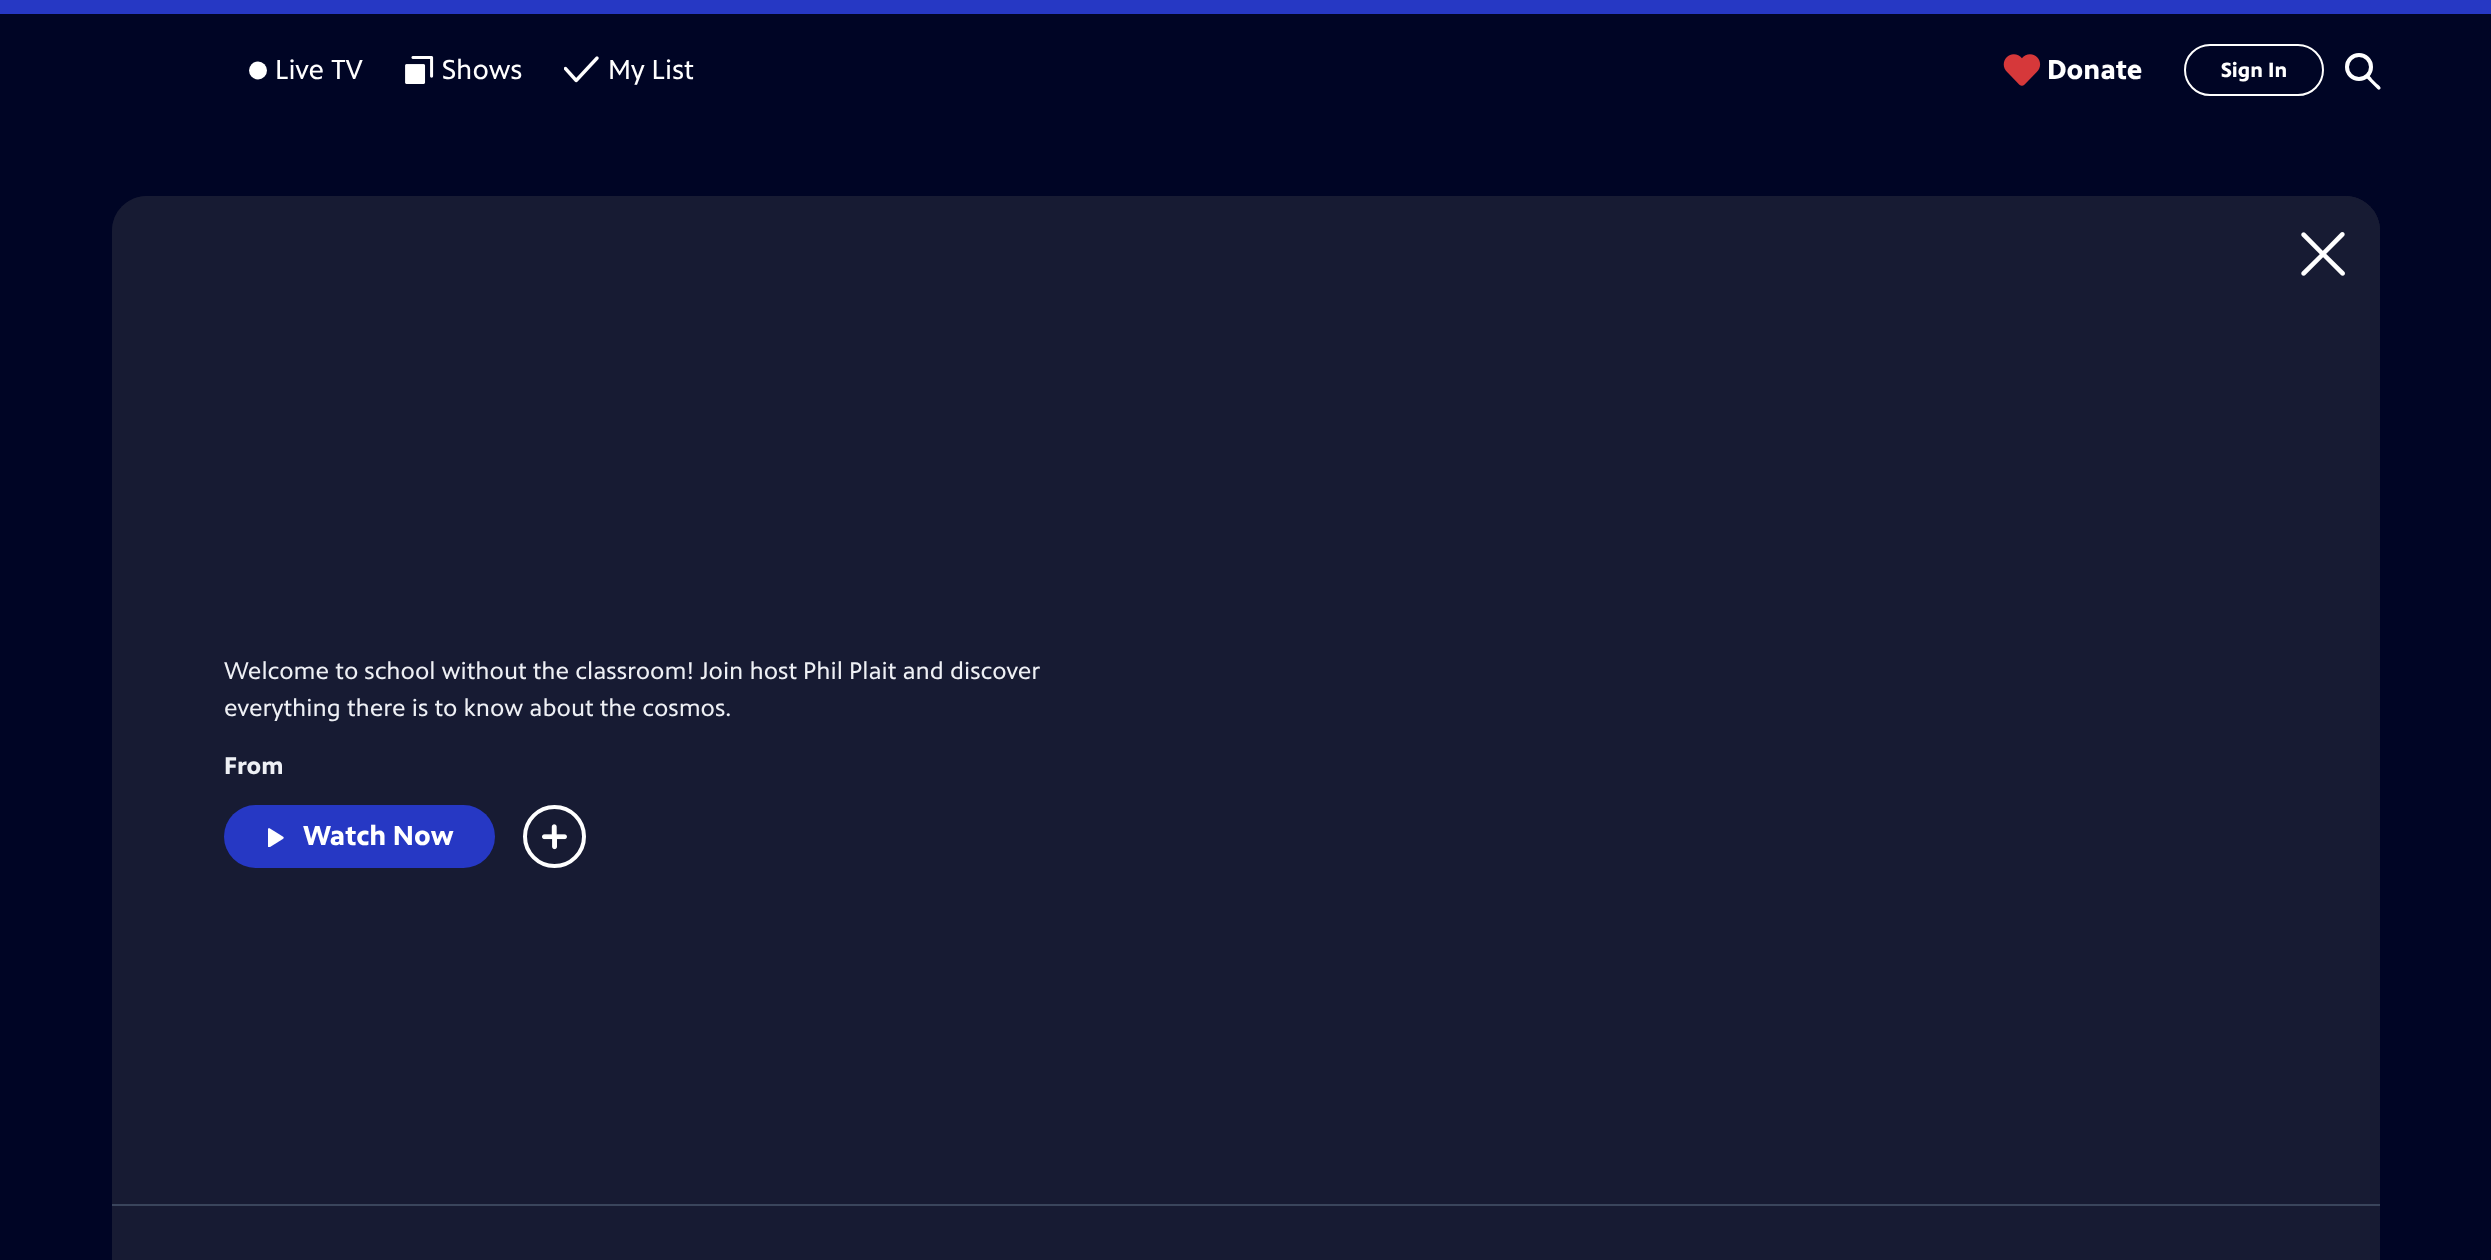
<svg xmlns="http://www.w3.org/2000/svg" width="2491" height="1260">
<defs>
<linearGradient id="g1" gradientUnits="userSpaceOnUse" x1="1246" y1="196" x2="1246" y2="427"><stop offset="0" stop-color="#171b33" stop-opacity="0.9"/><stop offset="0.96" stop-color="#171b33" stop-opacity="0"/></linearGradient>
</defs>
<rect width="100%" height="100%" fill="#000525"/>
<rect width="2491" height="14" fill="#2638c4"/>
<circle cx="258" cy="70.5" r="9" fill="#fff"/>
<text x="275" y="79" style="font-family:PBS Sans;font-size:28px;fill:#fff">Live TV</text>
<image x="405" y="56" width="29" height="28" href="media/1.png"/>
<text x="442" y="79" style="font-family:PBS Sans;font-size:28px;fill:#fff">Shows</text>
<image x="564" y="56" width="35" height="27" href="media/2.png"/>
<text x="608" y="79" style="font-family:PBS Sans;font-size:28px;fill:#fff">My List</text>
<image x="2003" y="54" width="38" height="32" href="media/3.png"/>
<text x="2047" y="79" style="font-family:PBS Sans;font-size:28px;font-weight:bold;fill:#fff">Donate</text>
<rect x="2185" y="45" width="138" height="50" rx="25" fill="none" stroke="#fff" stroke-width="2"/>
<text x="2221" y="77" style="font-family:PBS Sans;font-size:21px;font-weight:bold;fill:#fff">Sign In</text>
<circle cx="2359" cy="67" r="12" fill="none" stroke="#fff" stroke-width="4"/>
<path d="M2377.5 89l-12-12v-1.5c2-3 6 2.5 6.5 3.5l4 4c1 1 4 3 4.5 4.5c.5 2-2 3-3 1.5z" fill="#fff"/>
<rect x="112" y="196" width="2268" height="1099" rx="35" fill="#171b33"/>
<path d="M588 196h1757c19.5 0 35 15.5 35 35v973h-1792z" fill="#171b33"/>
<path d="M147 196h2198c19.5 0 35 15.5 35 35v196h-2268v-196c0-19.5 15.5-35 35-35z" fill="url(#g1)"/>
<image x="2301" y="232" width="44" height="44" href="media/4.png"/>
<text x="224" y="679" style="font-family:PBS Sans;font-size:24.5px;fill:#eef0f5">Welcome to school without the classroom! Join host Phil Plait and discover</text>
<text x="224" y="716" style="font-family:PBS Sans;font-size:24.5px;fill:#eef0f5">everything there is to know about the cosmos.</text>
<text x="224" y="774" style="font-family:PBS Sans;font-size:24.5px;font-weight:bold;fill:#eef0f5">From</text>
<rect x="224" y="805" width="271" height="63" rx="31.5" fill="#2638c4"/>
<image x="268" y="828" width="16" height="19" href="media/5.png"/>
<text x="303" y="845" style="font-family:PBS Sans;font-size:28px;font-weight:bold;fill:#fff">Watch Now</text>
<circle cx="554.5" cy="836.5" r="29.5" fill="none" stroke="#fff" stroke-width="4"/>
<image x="542" y="824" width="25" height="26" href="media/6.png"/>
<rect x="112" y="1204" width="2268" height="2" fill="#3a455c"/>
</svg>
